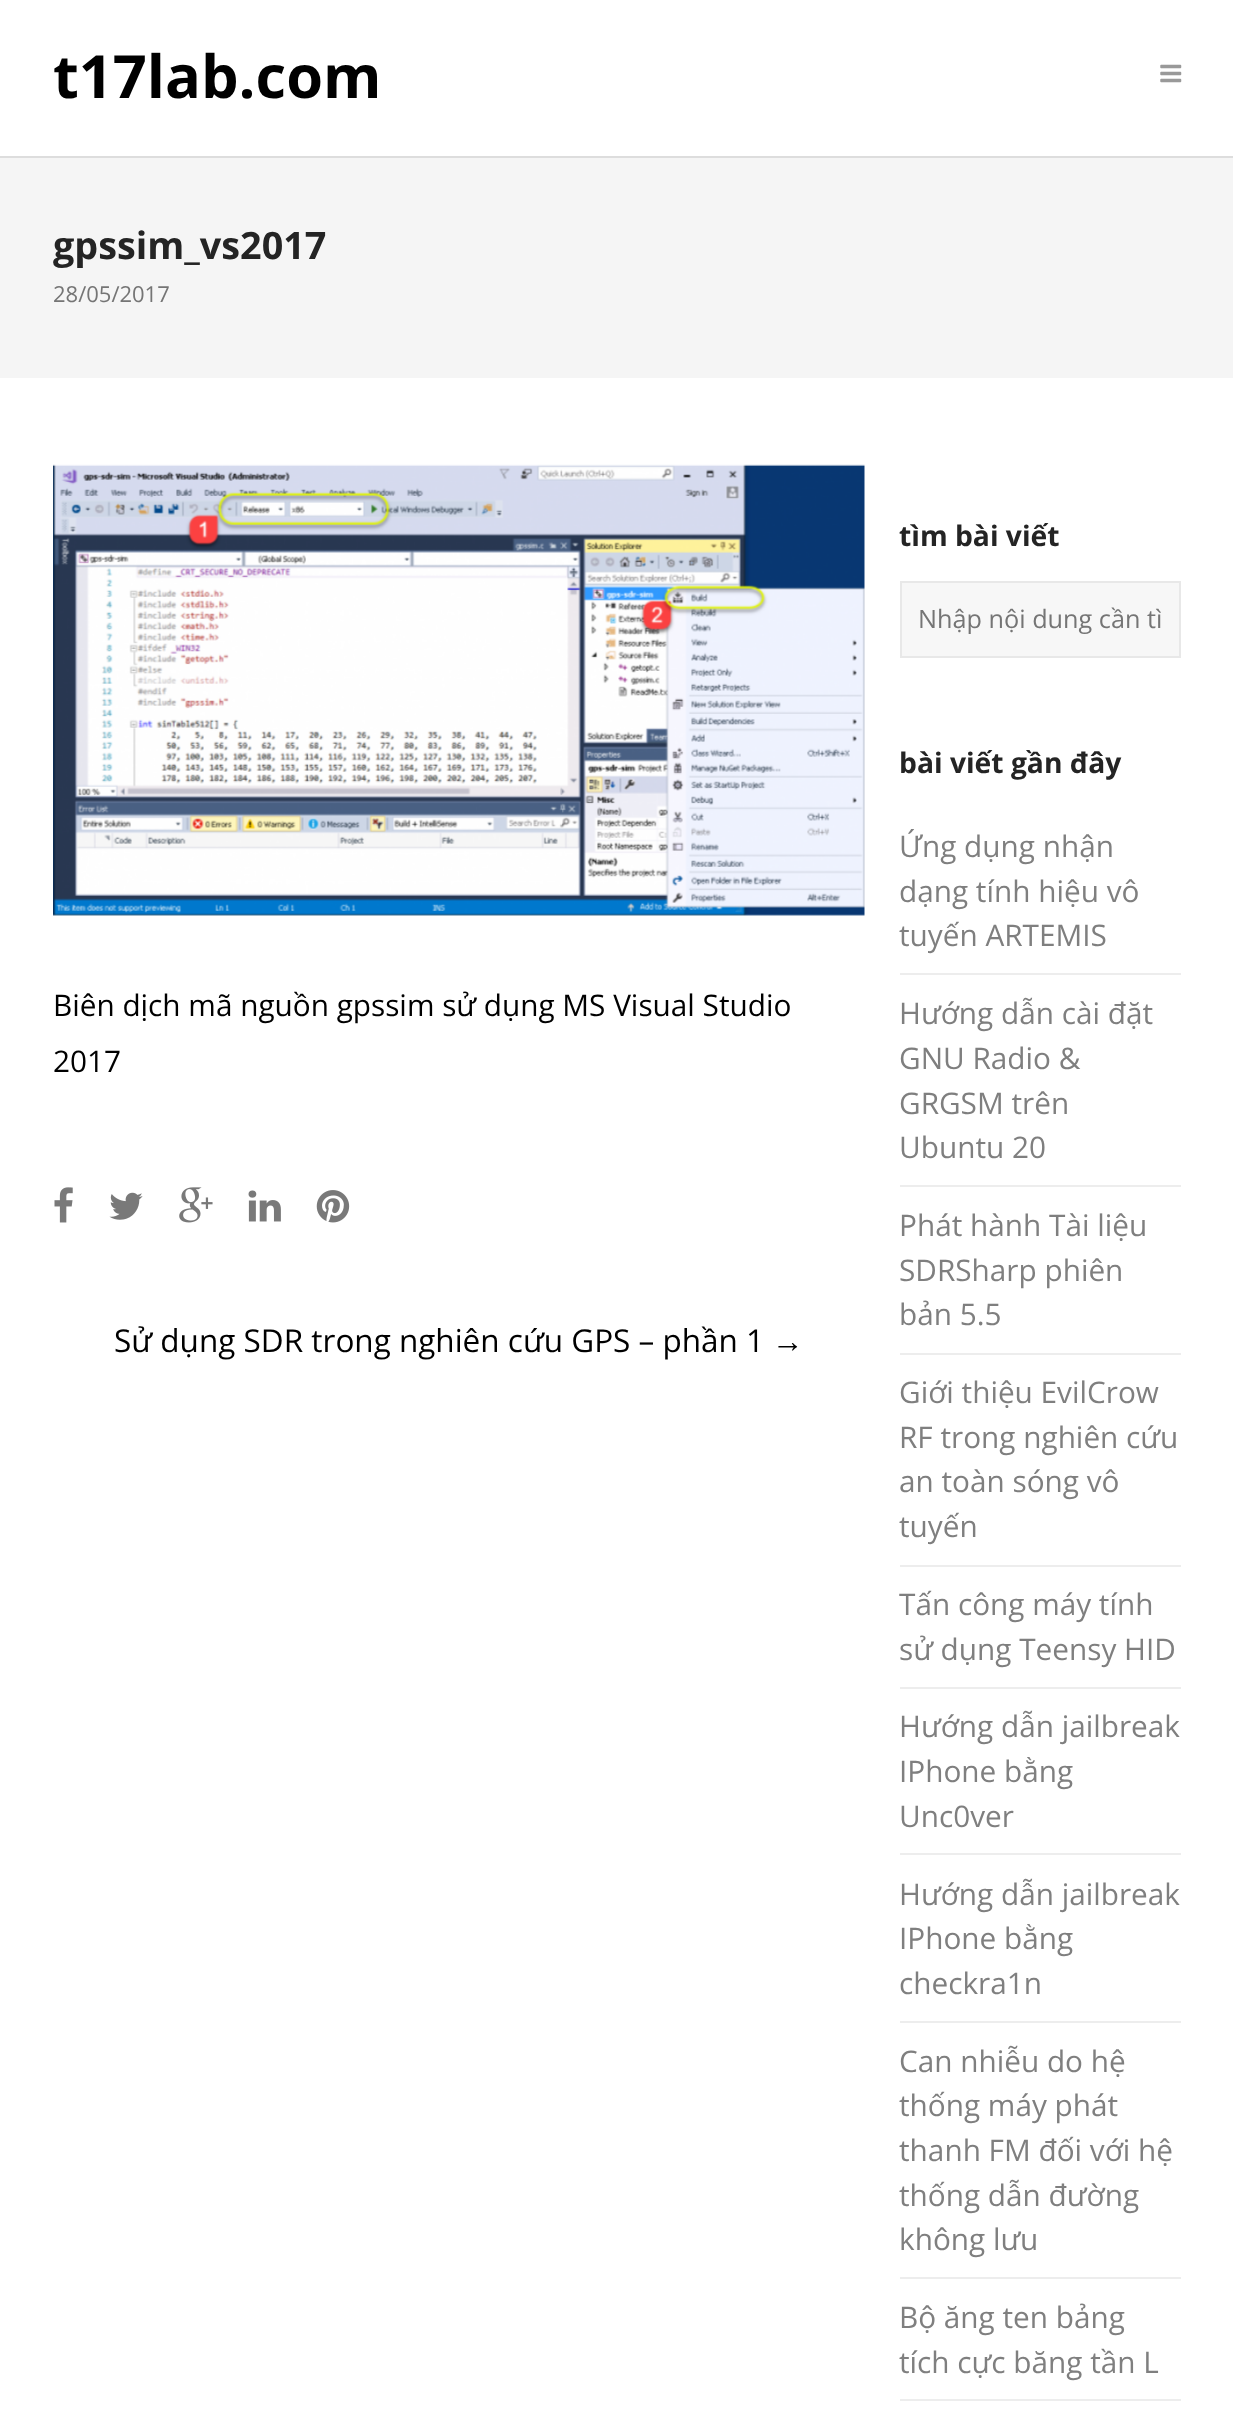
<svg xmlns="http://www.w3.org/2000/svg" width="1233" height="2419">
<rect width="100%" height="100%" fill="#fff"/>
<path d="M0 156v2h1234v-158v156z" fill="#ddd"/>
<text x="53" y="98" style="font-family:Open Sans;font-size:59.5px;font-weight:bold;fill:#000">t17lab.com</text>
<image x="1160" y="64" width="22" height="19" href="media/1.png"/>
<rect y="158" width="1233" height="220" fill="#f5f5f5"/>
<text x="53" y="259" style="font-family:Open Sans;font-size:37.75px;font-weight:bold;fill:#242424">gpssim_vs2017</text>
<text x="53" y="302" style="font-family:Open Sans;font-size:22px;fill:#757575">28/05/2017</text>
<image x="53" y="464" width="812" height="452" href="media/2.png"/>
<text x="53" y="1016" style="font-family:Open Sans;font-size:29.75px;fill:#000">Biên dịch mã nguồn gpssim sử dụng MS Visual Studio</text>
<text x="53" y="1072" style="font-family:Open Sans;font-size:29.75px;fill:#000">2017</text>
<image x="54" y="1187" width="19" height="36" href="media/3.png"/>
<image x="109" y="1192" width="34" height="28" href="media/4.png"/>
<image x="179" y="1187" width="34" height="36" href="media/5.png"/>
<image x="248" y="1190" width="33" height="32" href="media/6.png"/>
<image x="316" y="1190" width="34" height="33" href="media/7.png"/>
<text x="114" y="1352" style="font-family:Open Sans;font-size:31.5px;fill:#000">Sử dụng SDR trong nghiên cứu GPS – phần 1</text>
<text x="772" y="1352" style="font-family:Liberation Sans;font-size:31.5px;fill:#000">→</text>
<text x="899" y="546" style="font-family:Open Sans;font-size:28.25px;font-weight:bold;fill:#242424">tìm bài viết</text>
<rect x="901" y="582" width="279" height="75" fill="#f7f7f7" stroke="#e8e8e8" stroke-width="2"/>
<text x="918" y="628" style="font-family:Open Sans;font-size:25.25px;fill:#757575">Nhập nội dung cần tì</text>
<text x="899" y="773" style="font-family:Open Sans;font-size:28.25px;font-weight:bold;fill:#242424">bài viết gần đây</text>
<rect x="900" y="973" width="281" height="2" fill="#ededed"/>
<text x="899" y="857" style="font-family:Open Sans;font-size:29.75px;fill:#7f7f7f">Ứng dụng nhận</text>
<text x="899" y="902" style="font-family:Open Sans;font-size:29.75px;fill:#7f7f7f">dạng tính hiệu vô</text>
<text x="899" y="946" style="font-family:Open Sans;font-size:29.75px;fill:#7f7f7f">tuyến ARTEMIS</text>
<rect x="900" y="1185" width="281" height="2" fill="#ededed"/>
<text x="899" y="1024" style="font-family:Open Sans;font-size:29.75px;fill:#7f7f7f">Hướng dẫn cài đặt</text>
<text x="899" y="1069" style="font-family:Open Sans;font-size:29.75px;fill:#7f7f7f">GNU Radio &amp;</text>
<text x="899" y="1114" style="font-family:Open Sans;font-size:29.75px;fill:#7f7f7f">GRGSM trên</text>
<text x="899" y="1158" style="font-family:Open Sans;font-size:29.75px;fill:#7f7f7f">Ubuntu 20</text>
<rect x="900" y="1353" width="281" height="2" fill="#ededed"/>
<text x="899" y="1236" style="font-family:Open Sans;font-size:29.75px;fill:#7f7f7f">Phát hành Tài liệu</text>
<text x="899" y="1281" style="font-family:Open Sans;font-size:29.75px;fill:#7f7f7f">SDRSharp phiên</text>
<text x="899" y="1325" style="font-family:Open Sans;font-size:29.75px;fill:#7f7f7f">bản 5.5</text>
<rect x="900" y="1565" width="281" height="2" fill="#ededed"/>
<text x="899" y="1403" style="font-family:Open Sans;font-size:29.75px;fill:#7f7f7f">Giới thiệu EvilCrow</text>
<text x="899" y="1448" style="font-family:Open Sans;font-size:29.75px;fill:#7f7f7f">RF trong nghiên cứu</text>
<text x="899" y="1492" style="font-family:Open Sans;font-size:29.75px;fill:#7f7f7f">an toàn sóng vô</text>
<text x="899" y="1537" style="font-family:Open Sans;font-size:29.75px;fill:#7f7f7f">tuyến</text>
<rect x="900" y="1687" width="281" height="2" fill="#ededed"/>
<text x="899" y="1615" style="font-family:Open Sans;font-size:29.75px;fill:#7f7f7f">Tấn công máy tính</text>
<text x="899" y="1660" style="font-family:Open Sans;font-size:29.75px;fill:#7f7f7f">sử dụng Teensy HID</text>
<rect x="900" y="1853" width="281" height="2" fill="#ededed"/>
<text x="899" y="1737" style="font-family:Open Sans;font-size:29.75px;fill:#7f7f7f">Hướng dẫn jailbreak</text>
<text x="899" y="1782" style="font-family:Open Sans;font-size:29.75px;fill:#7f7f7f">IPhone bằng</text>
<text x="899" y="1827" style="font-family:Open Sans;font-size:29.75px;fill:#7f7f7f">Unc0ver</text>
<rect x="900" y="2021" width="281" height="2" fill="#ededed"/>
<text x="899" y="1905" style="font-family:Open Sans;font-size:29.75px;fill:#7f7f7f">Hướng dẫn jailbreak</text>
<text x="899" y="1949" style="font-family:Open Sans;font-size:29.75px;fill:#7f7f7f">IPhone bằng</text>
<text x="899" y="1994" style="font-family:Open Sans;font-size:29.75px;fill:#7f7f7f">checkra1n</text>
<rect x="900" y="2277" width="281" height="2" fill="#ededed"/>
<text x="899" y="2072" style="font-family:Open Sans;font-size:29.75px;fill:#7f7f7f">Can nhiễu do hệ</text>
<text x="899" y="2116" style="font-family:Open Sans;font-size:29.75px;fill:#7f7f7f">thống máy phát</text>
<text x="899" y="2161" style="font-family:Open Sans;font-size:29.75px;fill:#7f7f7f">thanh FM đối với hệ</text>
<text x="899" y="2206" style="font-family:Open Sans;font-size:29.75px;fill:#7f7f7f">thống dẫn đường</text>
<text x="899" y="2250" style="font-family:Open Sans;font-size:29.75px;fill:#7f7f7f">không lưu</text>
<rect x="900" y="2399" width="281" height="2" fill="#ededed"/>
<text x="899" y="2328" style="font-family:Open Sans;font-size:29.75px;fill:#7f7f7f">Bộ ăng ten bảng</text>
<text x="899" y="2373" style="font-family:Open Sans;font-size:29.75px;fill:#7f7f7f">tích cực băng tần L</text>
</svg>
